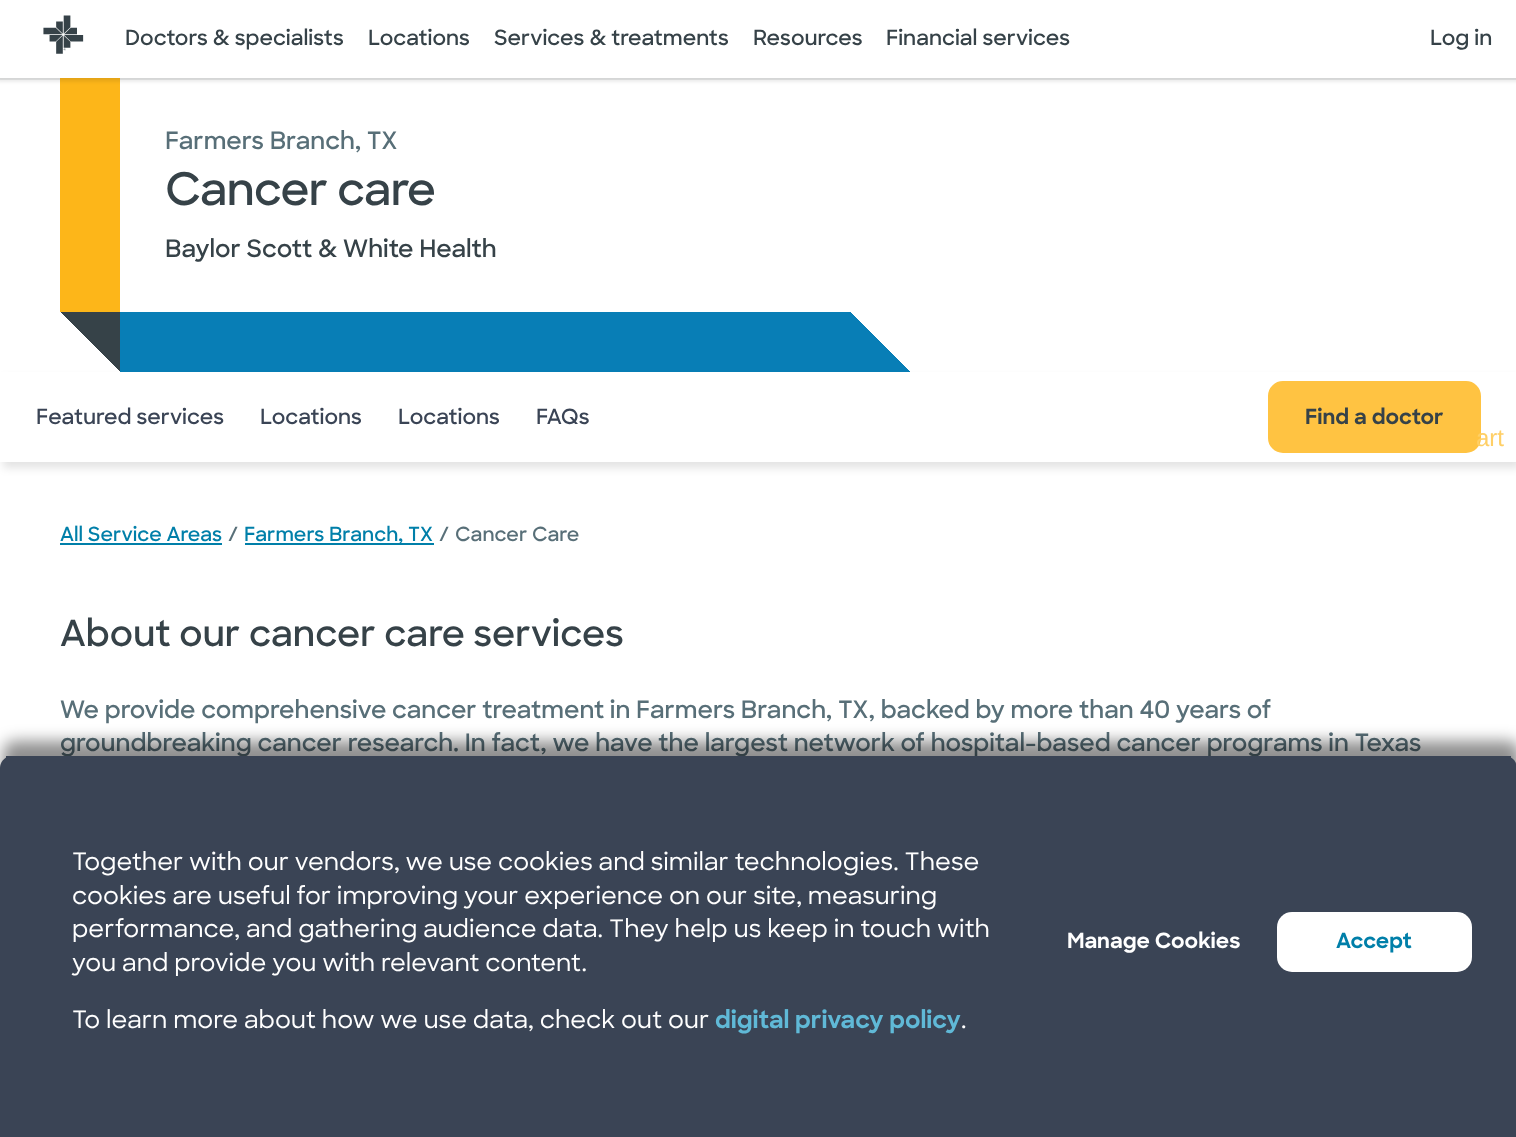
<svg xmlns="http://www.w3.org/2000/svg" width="1516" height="1137">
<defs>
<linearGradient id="g1" gradientUnits="userSpaceOnUse" x1="120" y1="312" x2="60" y2="372"><stop offset="0" stop-color="#364248"/><stop offset="0.5" stop-color="#364248"/><stop offset="0.5" stop-color="#fff"/><stop offset="1" stop-color="#fff"/></linearGradient>
<linearGradient id="g2" gradientUnits="userSpaceOnUse" x1="851" y1="372" x2="911" y2="312"><stop offset="0" stop-color="#087eb6"/><stop offset="0.5" stop-color="#087eb6"/><stop offset="0.5" stop-color="#fff"/><stop offset="1" stop-color="#fff"/></linearGradient>
</defs>
<rect width="100%" height="100%" fill="#eceded"/>
<rect y="80" width="1516" height="292" fill="#fff"/>
<rect x="60" y="78" width="60" height="234" fill="#fdb619"/>
<rect x="-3" y="-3" width="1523" height="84" fill="#0000001c" filter="blur(2px)"/>
<rect width="1516" height="78" fill="#fff"/>
<image x="43" y="15" width="41" height="39" href="media/1.png"/>
<text x="125" y="45" style="font-family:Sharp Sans;font-size:21px;font-weight:600;fill:#364248">Doctors &amp; specialists</text>
<text x="368" y="45" style="font-family:Sharp Sans;font-size:21px;font-weight:600;fill:#364248">Locations</text>
<text x="494" y="45" style="font-family:Sharp Sans;font-size:21px;font-weight:600;fill:#364248">Services &amp; treatments</text>
<text x="753" y="45" style="font-family:Sharp Sans;font-size:21px;font-weight:600;fill:#364248">Resources</text>
<text x="886" y="45" style="font-family:Sharp Sans;font-size:21px;font-weight:600;fill:#364248">Financial services</text>
<text x="1430" y="45" style="font-family:Sharp Sans;font-size:21px;font-weight:600;fill:#364248">Log in</text>
<rect x="61" y="312" width="59" height="59" fill="url(#g1)"/>
<rect x="120" y="312" width="731" height="60" fill="#087eb6"/>
<rect x="851" y="313" width="60" height="59" fill="url(#g2)"/>
<text x="165" y="149" style="font-family:Sharp Sans;font-size:24px;font-weight:600;fill:#586f78">Farmers Branch, TX</text>
<text x="165" y="205" style="font-family:Sharp Sans;font-size:45px;font-weight:600;letter-spacing:-0.75px;fill:#364248">Cancer care</text>
<text x="165" y="257" style="font-family:Sharp Sans;font-size:24px;font-weight:600;fill:#364248">Baylor Scott &amp; White Health</text>
<rect y="462" width="1516" height="306" fill="#fff"/>
<rect x="3" y="378" width="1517" height="90" fill="#0000001c" filter="blur(4.5px)"/>
<rect y="372" width="1516" height="90" fill="#fff"/>
<text x="36" y="424" style="font-family:Sharp Sans;font-size:21px;font-weight:600;fill:#3a4455">Featured services</text>
<text x="260" y="424" style="font-family:Sharp Sans;font-size:21px;font-weight:600;fill:#3a4455">Locations</text>
<text x="398" y="424" style="font-family:Sharp Sans;font-size:21px;font-weight:600;fill:#3a4455">Locations</text>
<text x="536" y="424" style="font-family:Sharp Sans;font-size:21px;font-weight:600;fill:#3a4455">FAQs</text>
<rect x="1269" y="382" width="211" height="70" rx="14" fill="#ffc342" stroke="#ffc342" stroke-width="2"/>
<text x="1305" y="424" style="font-family:Sharp Sans;font-size:21px;font-weight:bold;fill:#364248">Find a doctor</text>
<text x="60" y="541" style="font-family:Sharp Sans;font-size:19.5px;font-weight:600;fill:#007fa9">All Service Areas</text>
<rect x="60" y="543" width="162" height="2" fill="#007fa9"/>
<text x="228" y="541" style="font-family:Sharp Sans;font-size:19.5px;font-weight:600;fill:#586f78">/</text>
<rect x="245" y="543" width="189" height="2" fill="#007fa9"/>
<text x="244" y="541" style="font-family:Sharp Sans;font-size:19.5px;font-weight:600;fill:#007fa9">Farmers Branch, TX</text>
<text x="439" y="541" style="font-family:Sharp Sans;font-size:19.5px;font-weight:600;fill:#586f78">/</text>
<text x="455" y="541" style="font-family:Sharp Sans;font-size:19.5px;font-weight:600;fill:#586f78">Cancer Care</text>
<text x="60" y="646" style="font-family:Sharp Sans;font-size:36px;font-weight:600;fill:#364248">About our cancer care services</text>
<text x="60" y="718" style="font-family:Sharp Sans;font-size:24px;font-weight:600;fill:#586f78">We provide comprehensive cancer treatment in Farmers Branch, TX, backed by more than 40 years of</text>
<text x="60" y="751" style="font-family:Sharp Sans;font-size:24px;font-weight:600;fill:#586f78">groundbreaking cancer research. In fact, we have the largest network of hospital-based cancer programs in Texas</text>
<text x="1476" y="446" style="font-family:Liberation Sans;font-size:24px;fill:#ffcf66">art</text>
<rect x="3" y="741" width="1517" height="381" rx="12" fill="#00000070" filter="blur(7.5px)"/>
<path d="M12 756h1493c6.5 0 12 5.5 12 12v369h-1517v-369c0-6.5 5.5-12 12-12z" fill="#3a4455"/>
<rect x="6" y="756" width="1505" height="2" fill="#3a4455"/>
<text x="72" y="870" style="font-family:Sharp Sans;font-size:24px;font-weight:500;fill:#fff">Together with our vendors, we use cookies and similar technologies. These</text>
<text x="72" y="904" style="font-family:Sharp Sans;font-size:24px;font-weight:500;fill:#fff">cookies are useful for improving your experience on our site, measuring</text>
<text x="72" y="937" style="font-family:Sharp Sans;font-size:24px;font-weight:500;fill:#fff">performance, and gathering audience data. They help us keep in touch with</text>
<text x="72" y="971" style="font-family:Sharp Sans;font-size:24px;font-weight:500;fill:#fff">you and provide you with relevant content.</text>
<text x="72" y="1028" style="font-family:Sharp Sans;font-size:24px;font-weight:500;fill:#fff">To learn more about how we use data, check out our</text>
<text x="715" y="1028" style="font-family:Sharp Sans;font-size:24px;font-weight:bold;fill:#60b9d7">digital privacy policy</text>
<text x="961" y="1028" style="font-family:Sharp Sans;font-size:24px;font-weight:500;fill:#fff">.</text>
<text x="1067" y="948" style="font-family:Sharp Sans;font-size:21px;font-weight:bold;fill:#fff">Manage Cookies</text>
<rect x="1277" y="912" width="195" height="60" rx="15" fill="#fff"/>
<text x="1336" y="948" style="font-family:Sharp Sans;font-size:21px;font-weight:bold;fill:#007fa9">Accept</text>
</svg>
